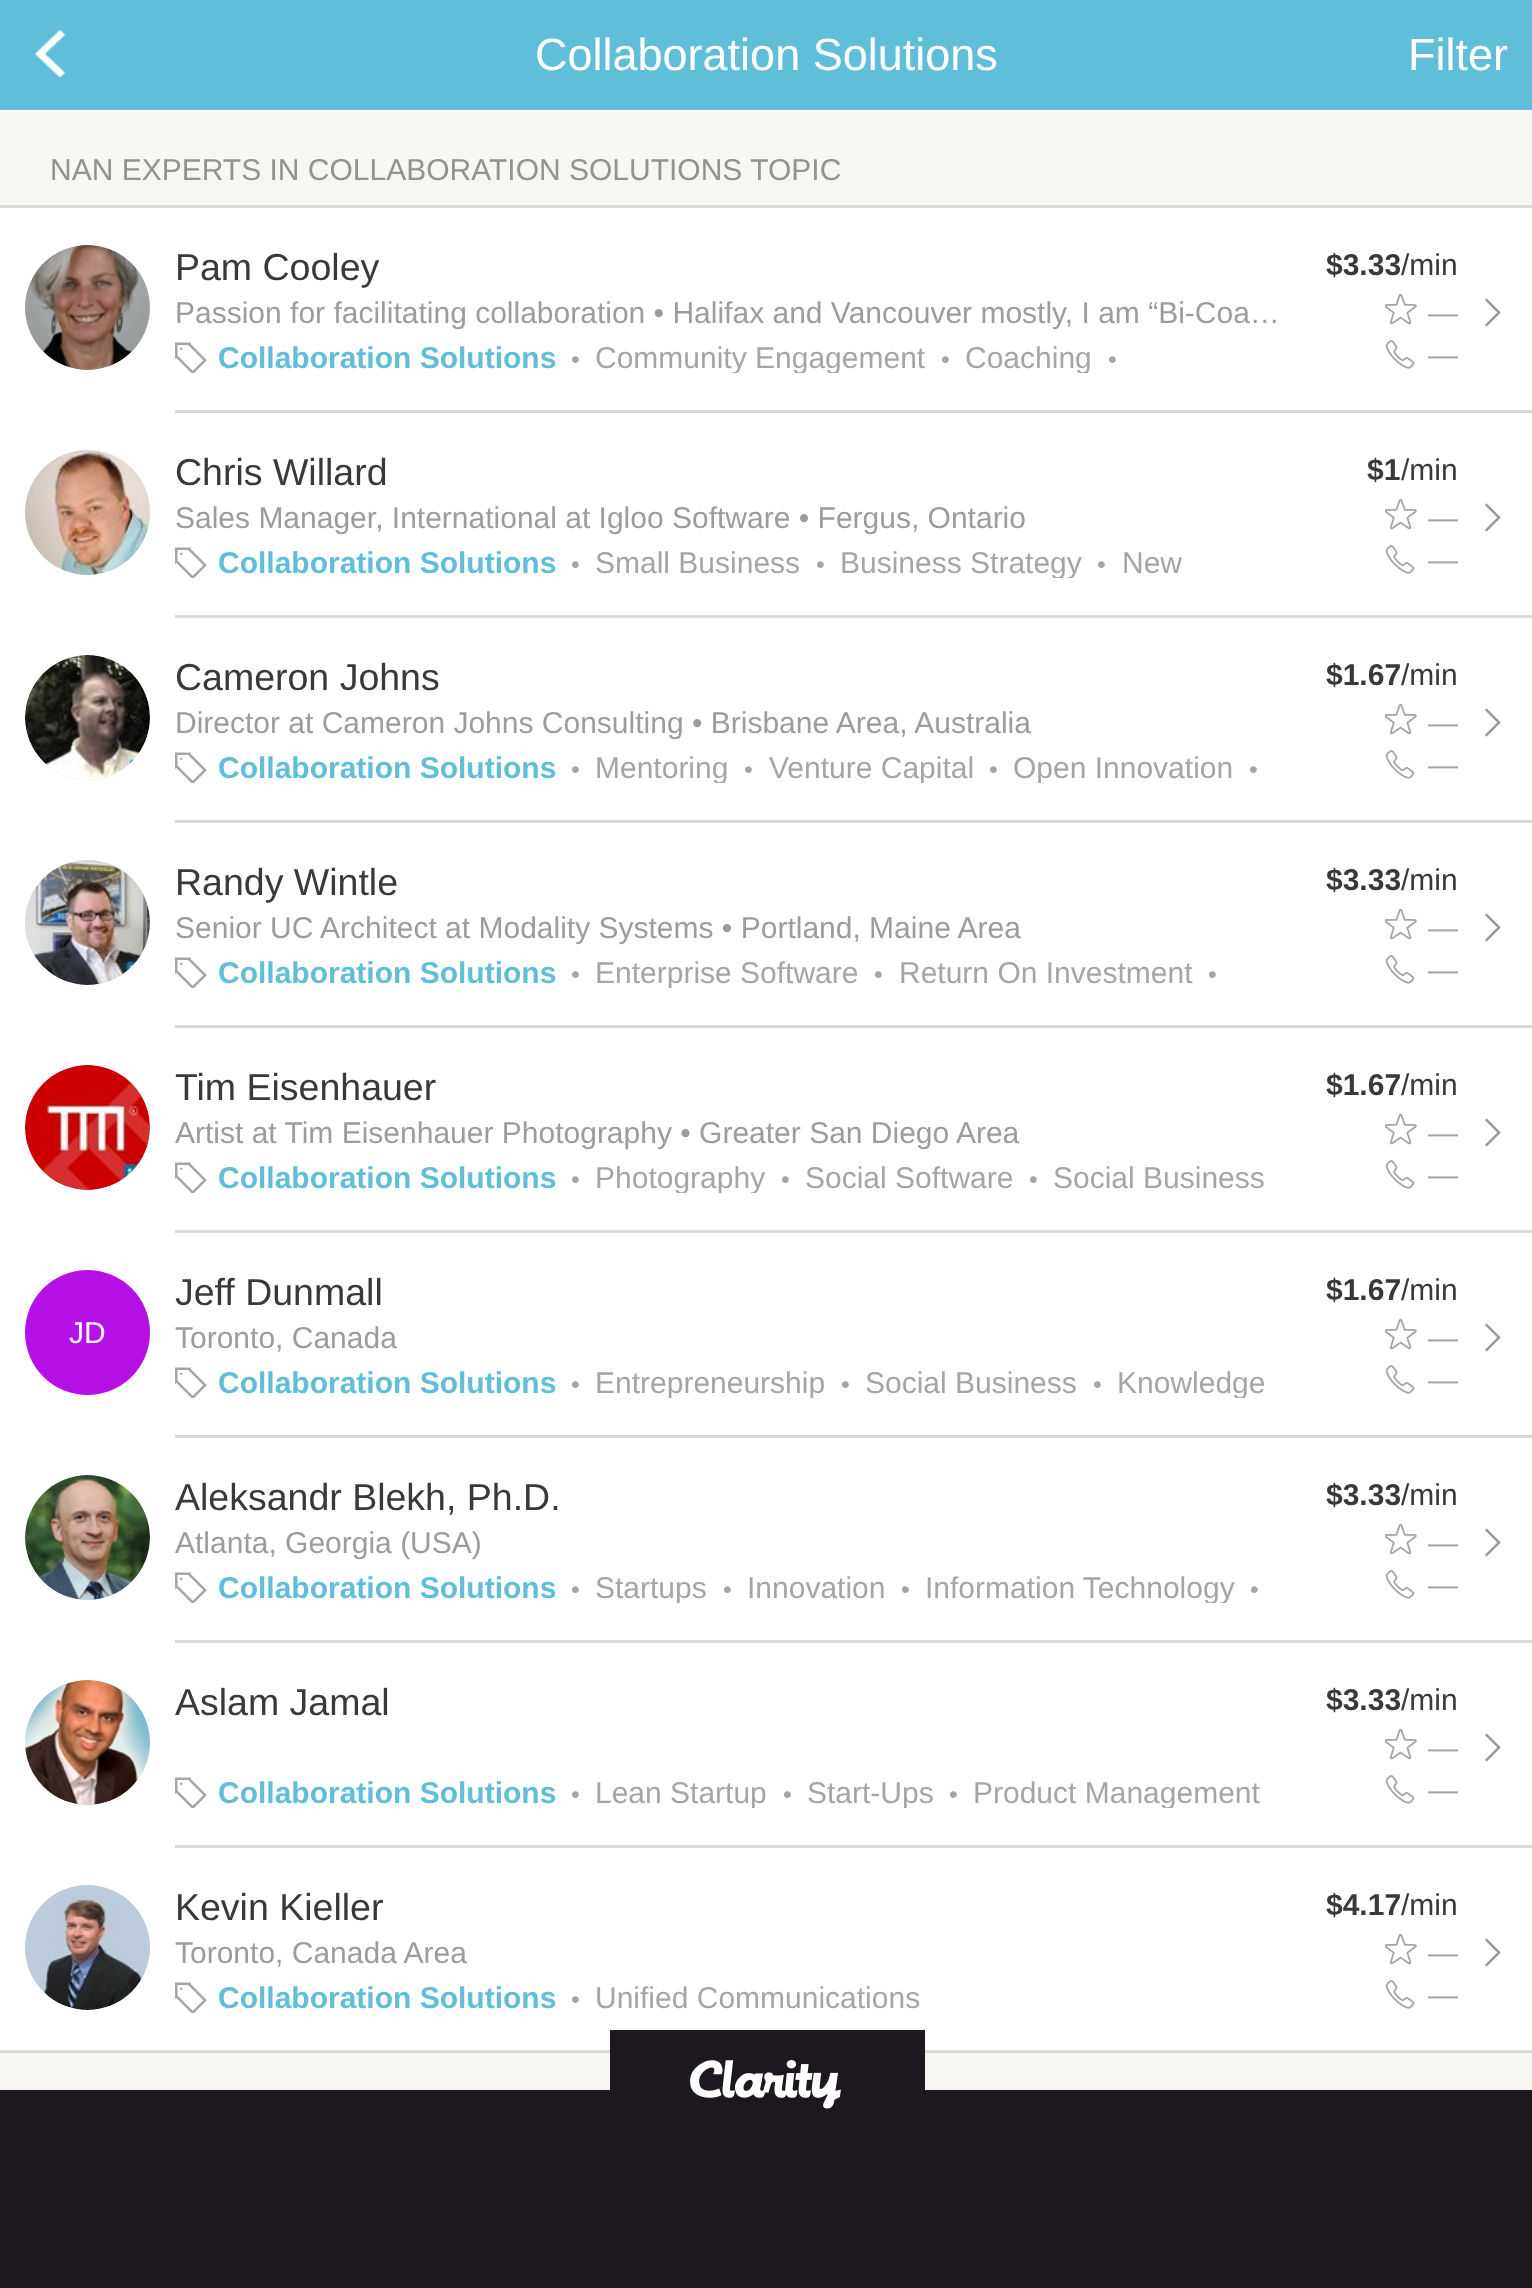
<svg xmlns="http://www.w3.org/2000/svg" width="1532" height="2288">
<defs>
<clipPath id="clip1"><rect x="175" y="245" width="1283" height="128"/></clipPath>
<clipPath id="clip2"><rect x="175" y="450" width="1283" height="128"/></clipPath>
<clipPath id="clip3"><rect x="175" y="655" width="1283" height="128"/></clipPath>
<clipPath id="clip4"><rect x="175" y="860" width="1283" height="128"/></clipPath>
<clipPath id="clip5"><rect x="175" y="1065" width="1283" height="128"/></clipPath>
<clipPath id="clip6"><rect x="175" y="1270" width="1283" height="128"/></clipPath>
<clipPath id="clip7"><rect x="175" y="1475" width="1283" height="128"/></clipPath>
<clipPath id="clip8"><rect x="175" y="1680" width="1283" height="128"/></clipPath>
</defs>
<rect width="100%" height="100%" fill="#61bed9"/>
<image x="34" y="29" width="32" height="49" href="media/1.png"/>
<text x="535" y="70" style="font-family:Liberation Sans;font-size:45px;fill:#fff">Collaboration Solutions</text>
<text x="1408" y="70" style="font-family:Liberation Sans;font-size:45px;fill:#fff">Filter</text>
<rect y="110" width="1532" height="1980" fill="#f7f6f1"/>
<text x="50" y="180" style="font-family:Liberation Sans;font-size:30px;fill:#929292">NAN EXPERTS IN COLLABORATION SOLUTIONS TOPIC</text>
<rect y="208" width="1532" height="1842" fill="#fff"/>
<rect y="205" width="1532" height="3" fill="#d9d9d9"/>
<rect y="2050" width="1532" height="3" fill="#d9d9d9"/>
<circle cx="87.5" cy="307.5" r="62.5" fill="#d9d9d9"/>
<image x="25" y="245" width="125" height="125" href="media/2.png"/>
<text x="175" y="280" style="font-family:Liberation Sans;font-size:37.5px;fill:#393939">Pam Cooley</text>
<text x="175" y="323" style="font-family:Liberation Sans;font-size:30px;fill:#9c9c9c">Passion for facilitating collaboration • Halifax and Vancouver mostly, I am “Bi-Coa…</text>
<image x="175" y="342" width="32" height="31" href="media/3.png"/>
<text x="218" y="368" style="font-family:Liberation Sans;font-size:30px;font-weight:bold;fill:#61bed9">Collaboration Solutions</text>
<text x="571" y="368" style="font-family:Liberation Sans;font-size:25px;fill:#a5a5a5">•</text>
<g clip-path="url(#clip1)">
<text x="595" y="368" style="font-family:Liberation Sans;font-size:30px;fill:#a5a5a5">Community Engagement</text>
</g>
<text x="941" y="368" style="font-family:Liberation Sans;font-size:25px;fill:#a5a5a5">•</text>
<g clip-path="url(#clip1)">
<text x="965" y="368" style="font-family:Liberation Sans;font-size:30px;fill:#a5a5a5">Coaching</text>
</g>
<text x="1108" y="368" style="font-family:Liberation Sans;font-size:25px;fill:#a5a5a5">•</text>
<text x="1326" y="275" style="font-family:Liberation Sans;font-size:30px;font-weight:bold;fill:#393939">$3.33</text>
<text x="1401" y="275" style="font-family:Liberation Sans;font-size:30px;fill:#393939">/min</text>
<image x="1385" y="293" width="32" height="32" href="media/4.png"/>
<text x="1428" y="323" style="font-family:Liberation Sans;font-size:30px;fill:#a5a5a5">—</text>
<image x="1385" y="340" width="30" height="29" href="media/5.png"/>
<text x="1428" y="365" style="font-family:Liberation Sans;font-size:30px;fill:#a5a5a5">—</text>
<image x="1485" y="298" width="16" height="29" href="media/6.png"/>
<rect x="175" y="410" width="1357" height="3" fill="#d9d9d9"/>
<circle cx="87.5" cy="512.5" r="62.5" fill="#d9d9d9"/>
<image x="25" y="450" width="125" height="125" href="media/7.png"/>
<text x="175" y="485" style="font-family:Liberation Sans;font-size:37.5px;fill:#393939">Chris Willard</text>
<text x="175" y="528" style="font-family:Liberation Sans;font-size:30px;fill:#9c9c9c">Sales Manager, International at Igloo Software • Fergus, Ontario</text>
<image x="175" y="547" width="32" height="31" href="media/3.png"/>
<text x="218" y="573" style="font-family:Liberation Sans;font-size:30px;font-weight:bold;fill:#61bed9">Collaboration Solutions</text>
<text x="571" y="573" style="font-family:Liberation Sans;font-size:25px;fill:#a5a5a5">•</text>
<text x="595" y="573" style="font-family:Liberation Sans;font-size:30px;fill:#a5a5a5">Small Business</text>
<text x="816" y="573" style="font-family:Liberation Sans;font-size:25px;fill:#a5a5a5">•</text>
<g clip-path="url(#clip2)">
<text x="840" y="573" style="font-family:Liberation Sans;font-size:30px;fill:#a5a5a5">Business Strategy</text>
</g>
<text x="1097" y="573" style="font-family:Liberation Sans;font-size:25px;fill:#a5a5a5">•</text>
<text x="1122" y="573" style="font-family:Liberation Sans;font-size:30px;fill:#a5a5a5">New</text>
<text x="1367" y="480" style="font-family:Liberation Sans;font-size:30px;font-weight:bold;fill:#393939">$1</text>
<text x="1401" y="480" style="font-family:Liberation Sans;font-size:30px;fill:#393939">/min</text>
<image x="1385" y="498" width="32" height="32" href="media/4.png"/>
<text x="1428" y="528" style="font-family:Liberation Sans;font-size:30px;fill:#a5a5a5">—</text>
<image x="1385" y="545" width="30" height="29" href="media/5.png"/>
<text x="1428" y="570" style="font-family:Liberation Sans;font-size:30px;fill:#a5a5a5">—</text>
<image x="1485" y="503" width="16" height="29" href="media/6.png"/>
<rect x="175" y="615" width="1357" height="3" fill="#d9d9d9"/>
<circle cx="87.5" cy="717.5" r="62.5" fill="#d9d9d9"/>
<image x="25" y="655" width="125" height="125" href="media/8.png"/>
<text x="175" y="690" style="font-family:Liberation Sans;font-size:37.5px;fill:#393939">Cameron Johns</text>
<text x="175" y="733" style="font-family:Liberation Sans;font-size:30px;fill:#9c9c9c">Director at Cameron Johns Consulting • Brisbane Area, Australia</text>
<image x="175" y="752" width="32" height="31" href="media/3.png"/>
<text x="218" y="778" style="font-family:Liberation Sans;font-size:30px;font-weight:bold;fill:#61bed9">Collaboration Solutions</text>
<text x="571" y="778" style="font-family:Liberation Sans;font-size:25px;fill:#a5a5a5">•</text>
<g clip-path="url(#clip3)">
<text x="595" y="778" style="font-family:Liberation Sans;font-size:30px;fill:#a5a5a5">Mentoring</text>
</g>
<text x="744" y="778" style="font-family:Liberation Sans;font-size:25px;fill:#a5a5a5">•</text>
<g clip-path="url(#clip3)">
<text x="769" y="778" style="font-family:Liberation Sans;font-size:30px;fill:#a5a5a5">Venture Capital</text>
</g>
<text x="989" y="778" style="font-family:Liberation Sans;font-size:25px;fill:#a5a5a5">•</text>
<g clip-path="url(#clip3)">
<text x="1013" y="778" style="font-family:Liberation Sans;font-size:30px;fill:#a5a5a5">Open Innovation</text>
</g>
<text x="1249" y="778" style="font-family:Liberation Sans;font-size:25px;fill:#a5a5a5">•</text>
<text x="1326" y="685" style="font-family:Liberation Sans;font-size:30px;font-weight:bold;fill:#393939">$1.67</text>
<text x="1401" y="685" style="font-family:Liberation Sans;font-size:30px;fill:#393939">/min</text>
<image x="1385" y="703" width="32" height="32" href="media/4.png"/>
<text x="1428" y="733" style="font-family:Liberation Sans;font-size:30px;fill:#a5a5a5">—</text>
<image x="1385" y="750" width="30" height="29" href="media/5.png"/>
<text x="1428" y="775" style="font-family:Liberation Sans;font-size:30px;fill:#a5a5a5">—</text>
<image x="1485" y="708" width="16" height="29" href="media/6.png"/>
<rect x="175" y="820" width="1357" height="3" fill="#d9d9d9"/>
<circle cx="87.5" cy="922.5" r="62.5" fill="#d9d9d9"/>
<image x="25" y="860" width="125" height="125" href="media/9.png"/>
<text x="175" y="895" style="font-family:Liberation Sans;font-size:37.5px;fill:#393939">Randy Wintle</text>
<text x="175" y="938" style="font-family:Liberation Sans;font-size:30px;fill:#9c9c9c">Senior UC Architect at Modality Systems • Portland, Maine Area</text>
<image x="175" y="957" width="32" height="31" href="media/3.png"/>
<text x="218" y="983" style="font-family:Liberation Sans;font-size:30px;font-weight:bold;fill:#61bed9">Collaboration Solutions</text>
<text x="571" y="983" style="font-family:Liberation Sans;font-size:25px;fill:#a5a5a5">•</text>
<g clip-path="url(#clip4)">
<text x="595" y="983" style="font-family:Liberation Sans;font-size:30px;fill:#a5a5a5">Enterprise Software</text>
</g>
<text x="874" y="983" style="font-family:Liberation Sans;font-size:25px;fill:#a5a5a5">•</text>
<text x="899" y="983" style="font-family:Liberation Sans;font-size:30px;fill:#a5a5a5">Return On Investment</text>
<text x="1208" y="983" style="font-family:Liberation Sans;font-size:25px;fill:#a5a5a5">•</text>
<text x="1326" y="890" style="font-family:Liberation Sans;font-size:30px;font-weight:bold;fill:#393939">$3.33</text>
<text x="1401" y="890" style="font-family:Liberation Sans;font-size:30px;fill:#393939">/min</text>
<image x="1385" y="908" width="32" height="32" href="media/4.png"/>
<text x="1428" y="938" style="font-family:Liberation Sans;font-size:30px;fill:#a5a5a5">—</text>
<image x="1385" y="955" width="30" height="29" href="media/5.png"/>
<text x="1428" y="980" style="font-family:Liberation Sans;font-size:30px;fill:#a5a5a5">—</text>
<image x="1485" y="913" width="16" height="29" href="media/6.png"/>
<rect x="175" y="1025" width="1357" height="3" fill="#d9d9d9"/>
<circle cx="87.5" cy="1127.5" r="62.5" fill="#d9d9d9"/>
<image x="25" y="1065" width="125" height="125" href="media/10.png"/>
<text x="175" y="1100" style="font-family:Liberation Sans;font-size:37.5px;fill:#393939">Tim Eisenhauer</text>
<text x="175" y="1143" style="font-family:Liberation Sans;font-size:30px;fill:#9c9c9c">Artist at Tim Eisenhauer Photography • Greater San Diego Area</text>
<image x="175" y="1162" width="32" height="31" href="media/3.png"/>
<text x="218" y="1188" style="font-family:Liberation Sans;font-size:30px;font-weight:bold;fill:#61bed9">Collaboration Solutions</text>
<text x="571" y="1188" style="font-family:Liberation Sans;font-size:25px;fill:#a5a5a5">•</text>
<g clip-path="url(#clip5)">
<text x="595" y="1188" style="font-family:Liberation Sans;font-size:30px;fill:#a5a5a5">Photography</text>
</g>
<text x="781" y="1188" style="font-family:Liberation Sans;font-size:25px;fill:#a5a5a5">•</text>
<text x="805" y="1188" style="font-family:Liberation Sans;font-size:30px;fill:#a5a5a5">Social Software</text>
<text x="1029" y="1188" style="font-family:Liberation Sans;font-size:25px;fill:#a5a5a5">•</text>
<text x="1053" y="1188" style="font-family:Liberation Sans;font-size:30px;fill:#a5a5a5">Social Business</text>
<text x="1326" y="1095" style="font-family:Liberation Sans;font-size:30px;font-weight:bold;fill:#393939">$1.67</text>
<text x="1401" y="1095" style="font-family:Liberation Sans;font-size:30px;fill:#393939">/min</text>
<image x="1385" y="1113" width="32" height="32" href="media/4.png"/>
<text x="1428" y="1143" style="font-family:Liberation Sans;font-size:30px;fill:#a5a5a5">—</text>
<image x="1385" y="1160" width="30" height="29" href="media/5.png"/>
<text x="1428" y="1185" style="font-family:Liberation Sans;font-size:30px;fill:#a5a5a5">—</text>
<image x="1485" y="1118" width="16" height="29" href="media/6.png"/>
<rect x="175" y="1230" width="1357" height="3" fill="#d9d9d9"/>
<circle cx="87.5" cy="1332.5" r="62.5" fill="#b511e7"/>
<text x="69" y="1343" style="font-family:Liberation Sans;font-size:30px;fill:#fff">JD</text>
<text x="175" y="1305" style="font-family:Liberation Sans;font-size:37.5px;fill:#393939">Jeff Dunmall</text>
<text x="175" y="1348" style="font-family:Liberation Sans;font-size:30px;fill:#9c9c9c">Toronto, Canada</text>
<image x="175" y="1367" width="32" height="31" href="media/3.png"/>
<text x="218" y="1393" style="font-family:Liberation Sans;font-size:30px;font-weight:bold;fill:#61bed9">Collaboration Solutions</text>
<text x="571" y="1393" style="font-family:Liberation Sans;font-size:25px;fill:#a5a5a5">•</text>
<g clip-path="url(#clip6)">
<text x="595" y="1393" style="font-family:Liberation Sans;font-size:30px;fill:#a5a5a5">Entrepreneurship</text>
</g>
<text x="841" y="1393" style="font-family:Liberation Sans;font-size:25px;fill:#a5a5a5">•</text>
<text x="865" y="1393" style="font-family:Liberation Sans;font-size:30px;fill:#a5a5a5">Social Business</text>
<text x="1093" y="1393" style="font-family:Liberation Sans;font-size:25px;fill:#a5a5a5">•</text>
<g clip-path="url(#clip6)">
<text x="1117" y="1393" style="font-family:Liberation Sans;font-size:30px;fill:#a5a5a5">Knowledge</text>
</g>
<text x="1326" y="1300" style="font-family:Liberation Sans;font-size:30px;font-weight:bold;fill:#393939">$1.67</text>
<text x="1401" y="1300" style="font-family:Liberation Sans;font-size:30px;fill:#393939">/min</text>
<image x="1385" y="1318" width="32" height="32" href="media/4.png"/>
<text x="1428" y="1348" style="font-family:Liberation Sans;font-size:30px;fill:#a5a5a5">—</text>
<image x="1385" y="1365" width="30" height="29" href="media/5.png"/>
<text x="1428" y="1390" style="font-family:Liberation Sans;font-size:30px;fill:#a5a5a5">—</text>
<image x="1485" y="1323" width="16" height="29" href="media/6.png"/>
<rect x="175" y="1435" width="1357" height="3" fill="#d9d9d9"/>
<circle cx="87.5" cy="1537.5" r="62.5" fill="#d9d9d9"/>
<image x="25" y="1475" width="125" height="125" href="media/11.png"/>
<text x="175" y="1510" style="font-family:Liberation Sans;font-size:37.5px;fill:#393939">Aleksandr Blekh, Ph.D.</text>
<text x="175" y="1553" style="font-family:Liberation Sans;font-size:30px;fill:#9c9c9c">Atlanta, Georgia (USA)</text>
<image x="175" y="1572" width="32" height="31" href="media/3.png"/>
<text x="218" y="1598" style="font-family:Liberation Sans;font-size:30px;font-weight:bold;fill:#61bed9">Collaboration Solutions</text>
<text x="571" y="1598" style="font-family:Liberation Sans;font-size:25px;fill:#a5a5a5">•</text>
<g clip-path="url(#clip7)">
<text x="595" y="1598" style="font-family:Liberation Sans;font-size:30px;fill:#a5a5a5">Startups</text>
</g>
<text x="723" y="1598" style="font-family:Liberation Sans;font-size:25px;fill:#a5a5a5">•</text>
<text x="747" y="1598" style="font-family:Liberation Sans;font-size:30px;fill:#a5a5a5">Innovation</text>
<text x="901" y="1598" style="font-family:Liberation Sans;font-size:25px;fill:#a5a5a5">•</text>
<g clip-path="url(#clip7)">
<text x="925" y="1598" style="font-family:Liberation Sans;font-size:30px;fill:#a5a5a5">Information Technology</text>
</g>
<text x="1250" y="1598" style="font-family:Liberation Sans;font-size:25px;fill:#a5a5a5">•</text>
<text x="1326" y="1505" style="font-family:Liberation Sans;font-size:30px;font-weight:bold;fill:#393939">$3.33</text>
<text x="1401" y="1505" style="font-family:Liberation Sans;font-size:30px;fill:#393939">/min</text>
<image x="1385" y="1523" width="32" height="32" href="media/4.png"/>
<text x="1428" y="1553" style="font-family:Liberation Sans;font-size:30px;fill:#a5a5a5">—</text>
<image x="1385" y="1570" width="30" height="29" href="media/5.png"/>
<text x="1428" y="1595" style="font-family:Liberation Sans;font-size:30px;fill:#a5a5a5">—</text>
<image x="1485" y="1528" width="16" height="29" href="media/6.png"/>
<rect x="175" y="1640" width="1357" height="3" fill="#d9d9d9"/>
<circle cx="87.5" cy="1742.5" r="62.5" fill="#d9d9d9"/>
<image x="25" y="1680" width="125" height="125" href="media/12.png"/>
<text x="175" y="1715" style="font-family:Liberation Sans;font-size:37.5px;fill:#393939">Aslam Jamal</text>
<image x="175" y="1777" width="32" height="31" href="media/3.png"/>
<text x="218" y="1803" style="font-family:Liberation Sans;font-size:30px;font-weight:bold;fill:#61bed9">Collaboration Solutions</text>
<text x="571" y="1803" style="font-family:Liberation Sans;font-size:25px;fill:#a5a5a5">•</text>
<g clip-path="url(#clip8)">
<text x="595" y="1803" style="font-family:Liberation Sans;font-size:30px;fill:#a5a5a5">Lean Startup</text>
</g>
<text x="783" y="1803" style="font-family:Liberation Sans;font-size:25px;fill:#a5a5a5">•</text>
<g clip-path="url(#clip8)">
<text x="807" y="1803" style="font-family:Liberation Sans;font-size:30px;fill:#a5a5a5">Start-Ups</text>
</g>
<text x="949" y="1803" style="font-family:Liberation Sans;font-size:25px;fill:#a5a5a5">•</text>
<g clip-path="url(#clip8)">
<text x="973" y="1803" style="font-family:Liberation Sans;font-size:30px;fill:#a5a5a5">Product Management</text>
</g>
<text x="1326" y="1710" style="font-family:Liberation Sans;font-size:30px;font-weight:bold;fill:#393939">$3.33</text>
<text x="1401" y="1710" style="font-family:Liberation Sans;font-size:30px;fill:#393939">/min</text>
<image x="1385" y="1728" width="32" height="32" href="media/4.png"/>
<text x="1428" y="1758" style="font-family:Liberation Sans;font-size:30px;fill:#a5a5a5">—</text>
<image x="1385" y="1775" width="30" height="29" href="media/5.png"/>
<text x="1428" y="1800" style="font-family:Liberation Sans;font-size:30px;fill:#a5a5a5">—</text>
<image x="1485" y="1733" width="16" height="29" href="media/6.png"/>
<rect x="175" y="1845" width="1357" height="3" fill="#d9d9d9"/>
<circle cx="87.5" cy="1947.5" r="62.5" fill="#d9d9d9"/>
<image x="25" y="1885" width="125" height="125" href="media/13.png"/>
<text x="175" y="1920" style="font-family:Liberation Sans;font-size:37.5px;fill:#393939">Kevin Kieller</text>
<text x="175" y="1963" style="font-family:Liberation Sans;font-size:30px;fill:#9c9c9c">Toronto, Canada Area</text>
<image x="175" y="1982" width="32" height="31" href="media/3.png"/>
<text x="218" y="2008" style="font-family:Liberation Sans;font-size:30px;font-weight:bold;fill:#61bed9">Collaboration Solutions</text>
<text x="571" y="2008" style="font-family:Liberation Sans;font-size:25px;fill:#a5a5a5">•</text>
<text x="595" y="2008" style="font-family:Liberation Sans;font-size:30px;fill:#a5a5a5">Unified Communications</text>
<text x="1326" y="1915" style="font-family:Liberation Sans;font-size:30px;font-weight:bold;fill:#393939">$4.17</text>
<text x="1401" y="1915" style="font-family:Liberation Sans;font-size:30px;fill:#393939">/min</text>
<image x="1385" y="1933" width="32" height="32" href="media/4.png"/>
<text x="1428" y="1963" style="font-family:Liberation Sans;font-size:30px;fill:#a5a5a5">—</text>
<image x="1385" y="1980" width="30" height="29" href="media/5.png"/>
<text x="1428" y="2005" style="font-family:Liberation Sans;font-size:30px;fill:#a5a5a5">—</text>
<image x="1485" y="1938" width="16" height="29" href="media/6.png"/>
<rect y="2090" width="1532" height="198" fill="#1d181f"/>
<rect x="610" y="2030" width="315" height="60" fill="#1d181f"/>
<image x="690" y="2060" width="151" height="49" href="media/14.png"/>
</svg>
